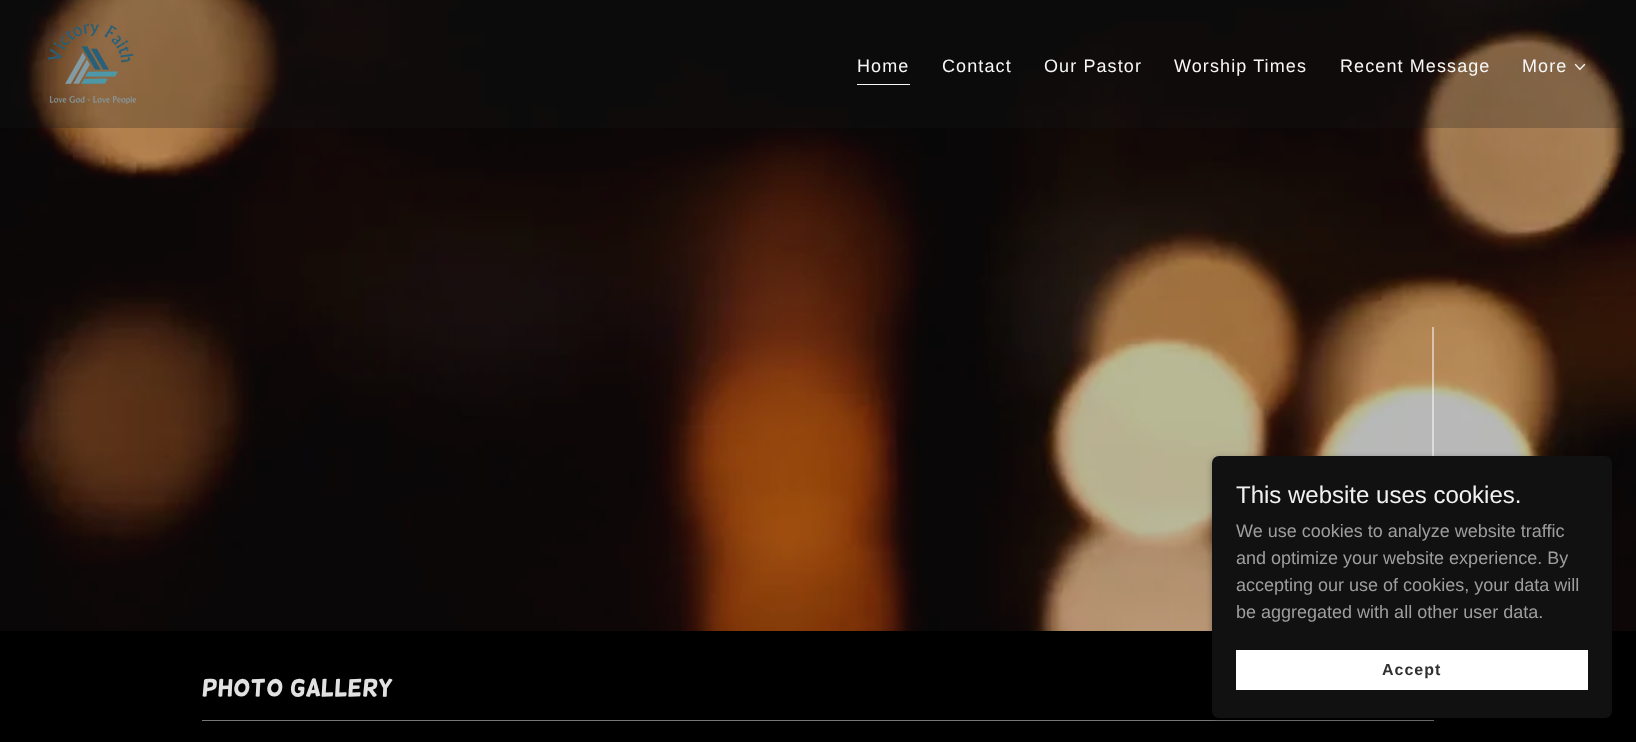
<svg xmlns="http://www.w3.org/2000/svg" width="1636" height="742">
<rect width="100%" height="100%" fill="#000"/>
<image x="0" y="0" width="1636" height="631" href="media/1.png"/>
<image x="1335" y="39" width="237" height="417" href="media/2.png"/>
<rect width="1636" height="128" fill="#16161640"/>
<image x="48" y="24" width="88" height="80" href="media/3.png"/>
<rect x="857" y="84" width="53" height="1" fill="#f7f7f7"/>
<text x="857" y="72" style="font-family:Liberation Sans;font-size:18px;letter-spacing:1.1px;fill:#f7f7f7">Home</text>
<text x="942" y="72" style="font-family:Liberation Sans;font-size:18px;letter-spacing:1.1px;fill:#f7f7f7">Contact</text>
<text x="1044" y="72" style="font-family:Liberation Sans;font-size:18px;letter-spacing:1.1px;fill:#f7f7f7">Our Pastor</text>
<text x="1174" y="72" style="font-family:Liberation Sans;font-size:18px;letter-spacing:1.1px;fill:#f7f7f7">Worship Times</text>
<text x="1340" y="72" style="font-family:Liberation Sans;font-size:18px;letter-spacing:1.1px;fill:#f7f7f7">Recent Message</text>
<text x="1522" y="72" style="font-family:Liberation Sans;font-size:18px;letter-spacing:1.1px;fill:#f7f7f7">More</text>
<image x="1574" y="63" width="12" height="8" href="media/4.png"/>
<rect x="1432" y="327" width="2" height="129" fill="#ffffff80"/>
<rect x="202" y="720" width="1232" height="1" fill="#777"/>
<rect x="1212" y="458" width="400" height="262" rx="7" fill="#0000004d" filter="blur(3px)"/>
<rect x="1212" y="456" width="400" height="262" rx="7" fill="#111"/>
<text x="1236" y="503" style="font-family:Liberation Sans;font-size:24px;fill:#f1f1f1">This website uses cookies.</text>
<text x="1236" y="537" style="font-family:Liberation Sans;font-size:18px;fill:#9e9e9e">We use cookies to analyze website traffic</text>
<text x="1236" y="564" style="font-family:Liberation Sans;font-size:18px;fill:#9e9e9e">and optimize your website experience. By</text>
<text x="1236" y="591" style="font-family:Liberation Sans;font-size:18px;fill:#9e9e9e">accepting our use of cookies, your data will</text>
<text x="1236" y="618" style="font-family:Liberation Sans;font-size:18px;fill:#9e9e9e">be aggregated with all other user data.</text>
<rect x="1236" y="650" width="352" height="40" fill="#fff"/>
<text x="1382" y="675" style="font-family:Liberation Sans;font-size:16px;font-weight:bold;letter-spacing:1px;fill:#303030">Accept</text>
<text x="202" y="696" style="font-family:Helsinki;font-size:24px;fill:#e2e2e2">Photo Gallery</text>
</svg>
